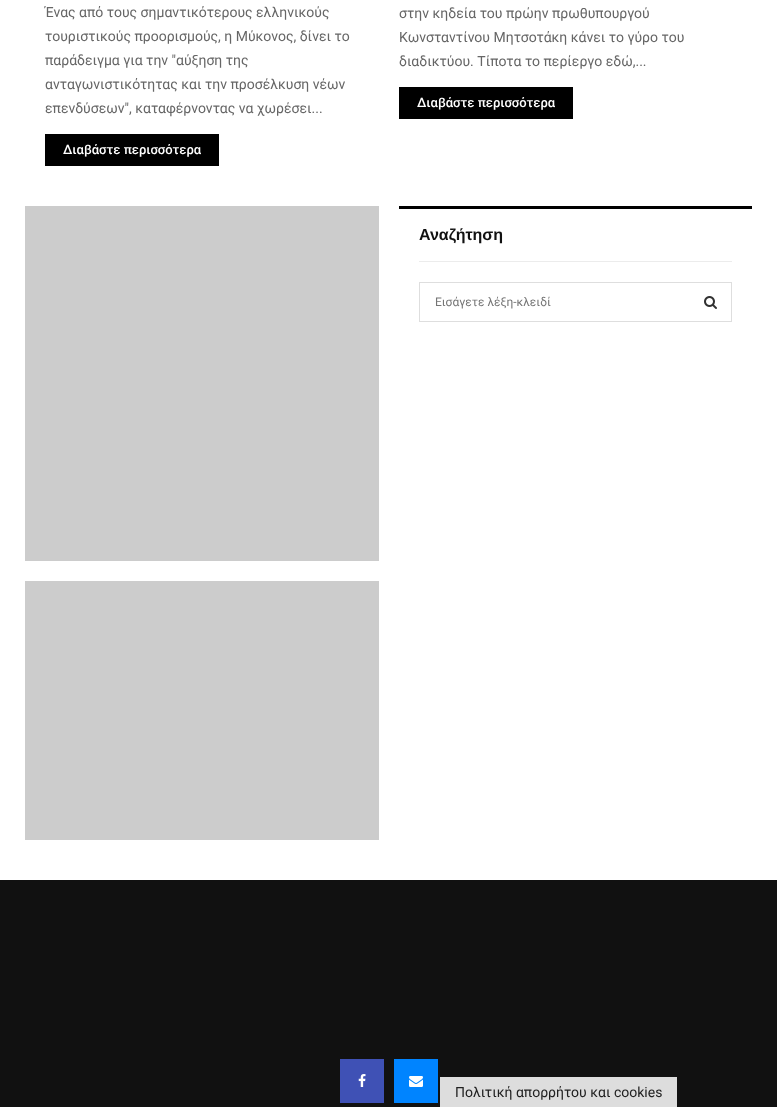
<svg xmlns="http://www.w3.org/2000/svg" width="777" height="1107">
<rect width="100%" height="100%" fill="#fff"/>
<text x="45" y="17" style="font-family:Roboto;font-size:14px;fill:#666">Ένας από τους σημαντικότερους ελληνικούς</text>
<text x="45" y="41" style="font-family:Roboto;font-size:14px;fill:#666">τουριστικούς προορισμούς, η Μύκονος, δίνει το</text>
<text x="45" y="65" style="font-family:Roboto;font-size:14px;fill:#666">παράδειγμα για την "αύξηση της</text>
<text x="45" y="89" style="font-family:Roboto;font-size:14px;fill:#666">ανταγωνιστικότητας και την προσέλκυση νέων</text>
<text x="45" y="113" style="font-family:Roboto;font-size:14px;fill:#666">επενδύσεων", καταφέρνοντας να χωρέσει...</text>
<rect x="45" y="134" width="174" height="32" fill="#000"/>
<text x="63" y="154" style="font-family:Roboto;font-size:13px;font-weight:500;fill:#fff">Διαβάστε περισσότερα</text>
<text x="399" y="18" style="font-family:Roboto;font-size:14px;fill:#666">στην κηδεία του πρώην πρωθυπουργού</text>
<text x="399" y="42" style="font-family:Roboto;font-size:14px;fill:#666">Κωνσταντίνου Μητσοτάκη κάνει το γύρο του</text>
<text x="399" y="66" style="font-family:Roboto;font-size:14px;fill:#666">διαδικτύου. Τίποτα το περίεργο εδώ,...</text>
<rect x="399" y="87" width="174" height="32" fill="#000"/>
<text x="417" y="107" style="font-family:Roboto;font-size:13px;font-weight:500;fill:#fff">Διαβάστε περισσότερα</text>
<rect x="25" y="206" width="354" height="355" fill="#ccc"/>
<rect x="25" y="581" width="354" height="259" fill="#ccc"/>
<rect x="419" y="261" width="313" height="1" fill="#ececec"/>
<rect x="399" y="206" width="353" height="3" fill="#000"/>
<text x="419" y="240" style="font-family:Liberation Sans;font-size:16px;font-weight:bold;fill:#111">Αναζήτηση</text>
<rect x="419.5" y="282.5" width="312" height="39" fill="none" stroke="#dedede"/>
<text x="435" y="306" style="font-family:Roboto;font-size:12px;fill:#757575">Εισάγετε λέξη-κλειδί</text>
<image x="704" y="296" width="13" height="13" href="media/1.png"/>
<rect y="880" width="777" height="227" fill="#111"/>
<rect x="340" y="1059" width="44" height="44" fill="#3f51b5"/>
<image x="358" y="1074" width="8" height="13" href="media/2.png"/>
<rect x="394" y="1059" width="44" height="44" fill="#0084ff"/>
<image x="409" y="1076" width="14" height="11" href="media/3.png"/>
<rect x="440" y="1077" width="237" height="30" fill="#ddd"/>
<text x="455" y="1097" style="font-family:Roboto;font-size:14px;fill:#212121">Πολιτική απορρήτου και cookies</text>
</svg>
